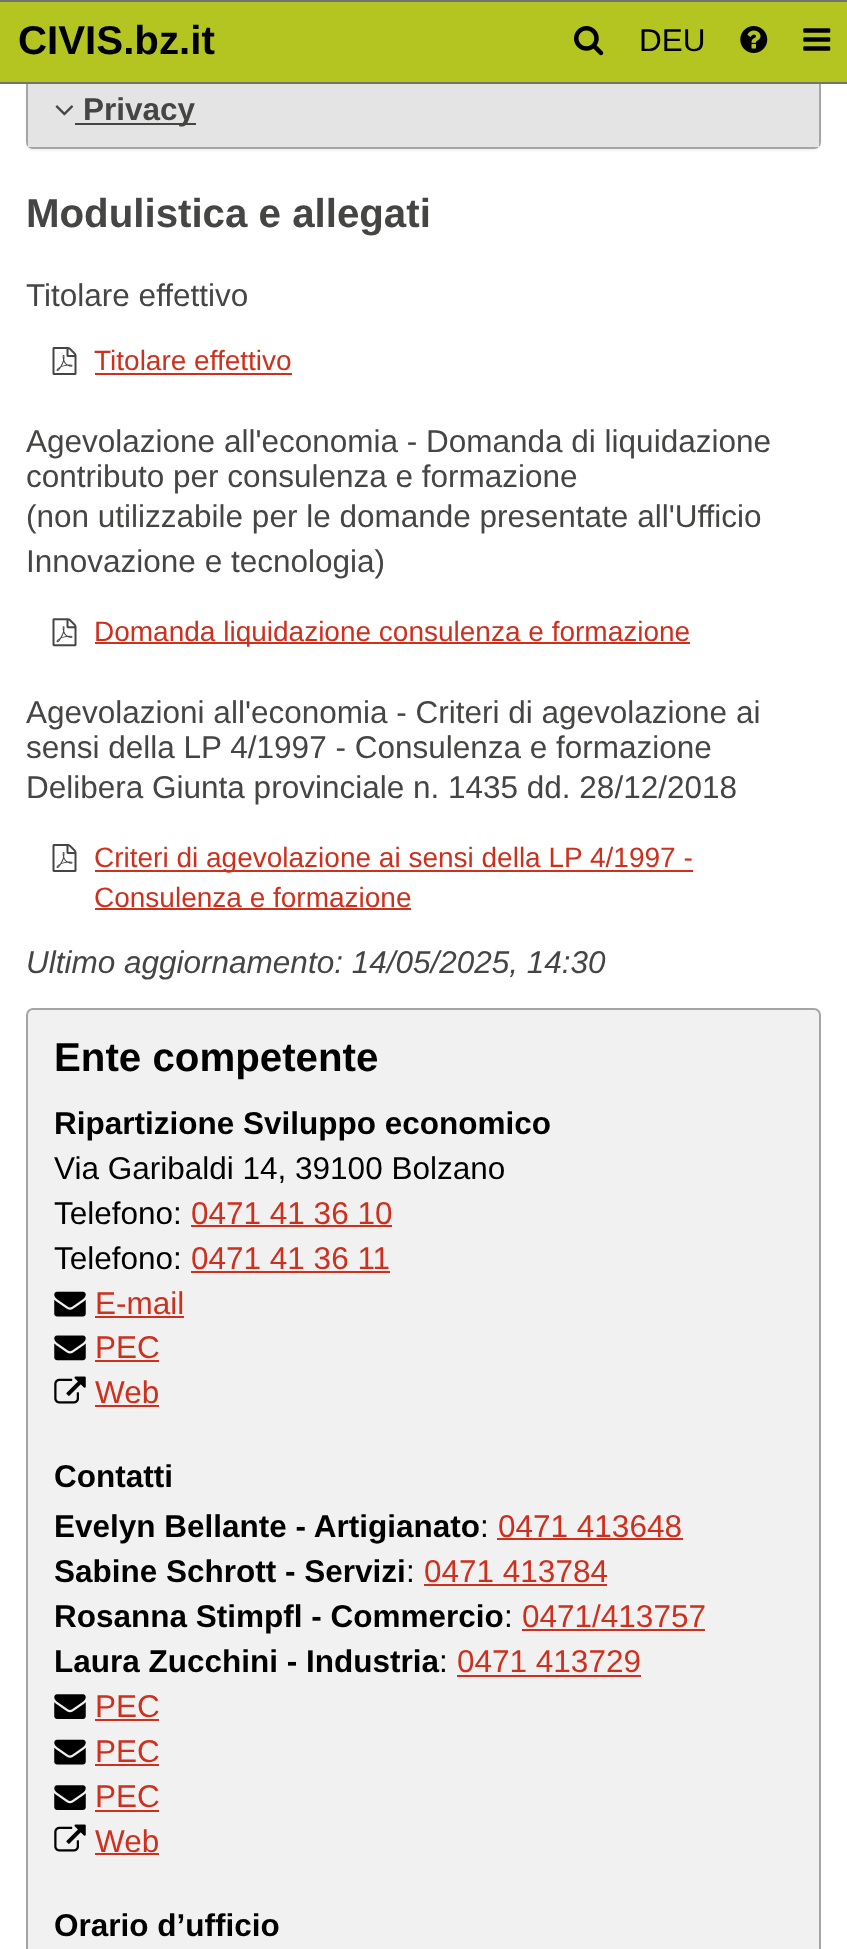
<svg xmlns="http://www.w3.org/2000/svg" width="847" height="1949">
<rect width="100%" height="100%" fill="#fff"/>
<rect width="847" height="2" fill="#727474"/>
<rect x="26" y="77" width="795" height="74" rx="7" fill="#0000000d" filter="blur(1px)"/>
<rect x="27" y="76" width="793" height="72" rx="6" fill="none" stroke="#a4a5a5" stroke-width="2"/>
<rect y="2" width="847" height="80" fill="#b4c420"/>
<rect y="82" width="847" height="2" fill="#727474"/>
<text x="18" y="54" style="font-family:Liberation Sans;font-size:40.25px;font-weight:bold;fill:#000">CIVIS.bz.it</text>
<image x="574" y="26" width="30" height="30" href="media/1.png"/>
<text x="639" y="51" style="font-family:Liberation Sans;font-size:31.5px;fill:#000">DEU</text>
<image x="740" y="26" width="28" height="27" href="media/2.png"/>
<image x="803" y="28" width="28" height="23" href="media/3.png"/>
<rect x="28" y="84" width="791" height="63" fill="#e4e4e5"/>
<image x="55" y="105" width="19" height="11" href="media/4.png"/>
<rect x="75" y="123" width="121" height="2" fill="#454544"/>
<text x="83" y="120" style="font-family:Liberation Sans;font-size:31.5px;font-weight:bold;fill:#454544">Privacy</text>
<text x="26" y="227" style="font-family:Liberation Sans;font-size:40.25px;font-weight:bold;fill:#454544">Modulistica e allegati</text>
<text x="26" y="306" style="font-family:Liberation Sans;font-size:31.5px;fill:#454544">Titolare effettivo</text>
<image x="52" y="347" width="25" height="28" href="media/5.png"/>
<text x="94" y="370" style="font-family:Liberation Sans;font-size:28px;fill:#ce301e">Titolare effettivo</text>
<rect x="95" y="373" width="197" height="2" fill="#ce301e"/>
<text x="26" y="452" style="font-family:Liberation Sans;font-size:31.5px;fill:#454544">Agevolazione all'economia - Domanda di liquidazione</text>
<text x="26" y="487" style="font-family:Liberation Sans;font-size:31.5px;fill:#454544">contributo per consulenza e formazione</text>
<text x="26" y="527" style="font-family:Liberation Sans;font-size:31.5px;fill:#454544">(non utilizzabile per le domande presentate all'Ufficio</text>
<text x="26" y="572" style="font-family:Liberation Sans;font-size:31.5px;fill:#454544">Innovazione e tecnologia)</text>
<image x="52" y="618" width="25" height="29" href="media/6.png"/>
<rect x="95" y="642" width="595" height="2" fill="#ce301e"/>
<text x="94" y="641" style="font-family:Liberation Sans;font-size:28px;fill:#ce301e">Domanda liquidazione consulenza e formazione</text>
<text x="26" y="723" style="font-family:Liberation Sans;font-size:31.5px;fill:#454544">Agevolazioni all'economia - Criteri di agevolazione ai</text>
<text x="26" y="758" style="font-family:Liberation Sans;font-size:31.5px;fill:#454544">sensi della LP 4/1997 - Consulenza e formazione</text>
<text x="26" y="798" style="font-family:Liberation Sans;font-size:31.5px;fill:#454544">Delibera Giunta provinciale n. 1435 dd. 28/12/2018</text>
<image x="52" y="844" width="25" height="28" href="media/5.png"/>
<rect x="95" y="870" width="598" height="2" fill="#ce301e"/>
<text x="94" y="867" style="font-family:Liberation Sans;font-size:28px;fill:#ce301e">Criteri di agevolazione ai sensi della LP 4/1997 -</text>
<text x="94" y="907" style="font-family:Liberation Sans;font-size:28px;fill:#ce301e">Consulenza e formazione</text>
<rect x="95" y="908" width="316" height="2" fill="#ce301e"/>
<text x="26" y="973" style="font-family:Liberation Sans;font-size:31.5px;font-style:italic;fill:#454544">Ultimo aggiornamento: 14/05/2025, 14:30</text>
<rect x="27" y="1009" width="793" height="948" rx="6" fill="#f1f1f2" stroke="#a4a5a5" stroke-width="2"/>
<text x="54" y="1071" style="font-family:Liberation Sans;font-size:40.25px;font-weight:bold;fill:#000">Ente competente</text>
<text x="54" y="1134" style="font-family:Liberation Sans;font-size:31.5px;font-weight:bold;fill:#000">Ripartizione Sviluppo economico</text>
<text x="54" y="1179" style="font-family:Liberation Sans;font-size:31.5px;fill:#000">Via Garibaldi 14, 39100 Bolzano</text>
<text x="54" y="1224" style="font-family:Liberation Sans;font-size:31.5px;fill:#000">Telefono:</text>
<text x="191" y="1224" style="font-family:Liberation Sans;font-size:31.5px;fill:#ce301e">0471 41 36 10</text>
<rect x="191" y="1225" width="201" height="2" fill="#ce301e"/>
<text x="54" y="1269" style="font-family:Liberation Sans;font-size:31.5px;fill:#000">Telefono:</text>
<text x="191" y="1269" style="font-family:Liberation Sans;font-size:31.5px;fill:#ce301e">0471 41 36 11</text>
<rect x="191" y="1271" width="199" height="2" fill="#ce301e"/>
<image x="54" y="1291" width="32" height="26" href="media/7.png"/>
<text x="95" y="1314" style="font-family:Liberation Sans;font-size:31.5px;fill:#ce301e">E-mail</text>
<rect x="95" y="1316" width="89" height="2" fill="#ce301e"/>
<image x="54" y="1335" width="32" height="26" href="media/8.png"/>
<text x="95" y="1358" style="font-family:Liberation Sans;font-size:31.5px;fill:#ce301e">PEC</text>
<rect x="95" y="1360" width="64" height="2" fill="#ce301e"/>
<image x="54" y="1376" width="32" height="28" href="media/9.png"/>
<text x="95" y="1403" style="font-family:Liberation Sans;font-size:31.5px;fill:#ce301e">Web</text>
<rect x="95" y="1405" width="64" height="2" fill="#ce301e"/>
<text x="54" y="1487" style="font-family:Liberation Sans;font-size:31.5px;font-weight:bold;fill:#000">Contatti</text>
<text x="54" y="1537" style="font-family:Liberation Sans;font-size:31.5px;font-weight:bold;fill:#000">Evelyn Bellante - Artigianato</text>
<text x="480" y="1537" style="font-family:Liberation Sans;font-size:31.5px;fill:#000">:</text>
<text x="498" y="1537" style="font-family:Liberation Sans;font-size:31.5px;fill:#ce301e">0471 413648</text>
<rect x="497" y="1538" width="186" height="2" fill="#ce301e"/>
<text x="54" y="1582" style="font-family:Liberation Sans;font-size:31.5px;font-weight:bold;fill:#000">Sabine Schrott - Servizi</text>
<text x="406" y="1582" style="font-family:Liberation Sans;font-size:31.5px;fill:#000">:</text>
<text x="424" y="1582" style="font-family:Liberation Sans;font-size:31.5px;fill:#ce301e">0471 413784</text>
<rect x="424" y="1584" width="183" height="2" fill="#ce301e"/>
<text x="54" y="1627" style="font-family:Liberation Sans;font-size:31.5px;font-weight:bold;fill:#000">Rosanna Stimpfl - Commercio</text>
<text x="504" y="1627" style="font-family:Liberation Sans;font-size:31.5px;fill:#000">:</text>
<text x="522" y="1627" style="font-family:Liberation Sans;font-size:31.5px;fill:#ce301e">0471/413757</text>
<rect x="522" y="1629" width="183" height="2" fill="#ce301e"/>
<text x="54" y="1672" style="font-family:Liberation Sans;font-size:31.5px;font-weight:bold;fill:#000">Laura Zucchini - Industria</text>
<text x="439" y="1672" style="font-family:Liberation Sans;font-size:31.5px;fill:#000">:</text>
<text x="457" y="1672" style="font-family:Liberation Sans;font-size:31.5px;fill:#ce301e">0471 413729</text>
<rect x="457" y="1675" width="184" height="2" fill="#ce301e"/>
<image x="54" y="1694" width="32" height="25" href="media/10.png"/>
<text x="95" y="1717" style="font-family:Liberation Sans;font-size:31.5px;fill:#ce301e">PEC</text>
<rect x="95" y="1719" width="64" height="2" fill="#ce301e"/>
<image x="54" y="1739" width="32" height="26" href="media/7.png"/>
<text x="95" y="1762" style="font-family:Liberation Sans;font-size:31.5px;fill:#ce301e">PEC</text>
<rect x="95" y="1764" width="64" height="2" fill="#ce301e"/>
<image x="54" y="1785" width="32" height="25" href="media/10.png"/>
<text x="95" y="1807" style="font-family:Liberation Sans;font-size:31.5px;fill:#ce301e">PEC</text>
<rect x="95" y="1810" width="64" height="2" fill="#ce301e"/>
<image x="54" y="1824" width="32" height="28" href="media/9.png"/>
<text x="95" y="1852" style="font-family:Liberation Sans;font-size:31.5px;fill:#ce301e">Web</text>
<rect x="95" y="1853" width="64" height="2" fill="#ce301e"/>
<text x="54" y="1936" style="font-family:Liberation Sans;font-size:31.5px;font-weight:bold;fill:#000">Orario d’ufficio</text>
</svg>
